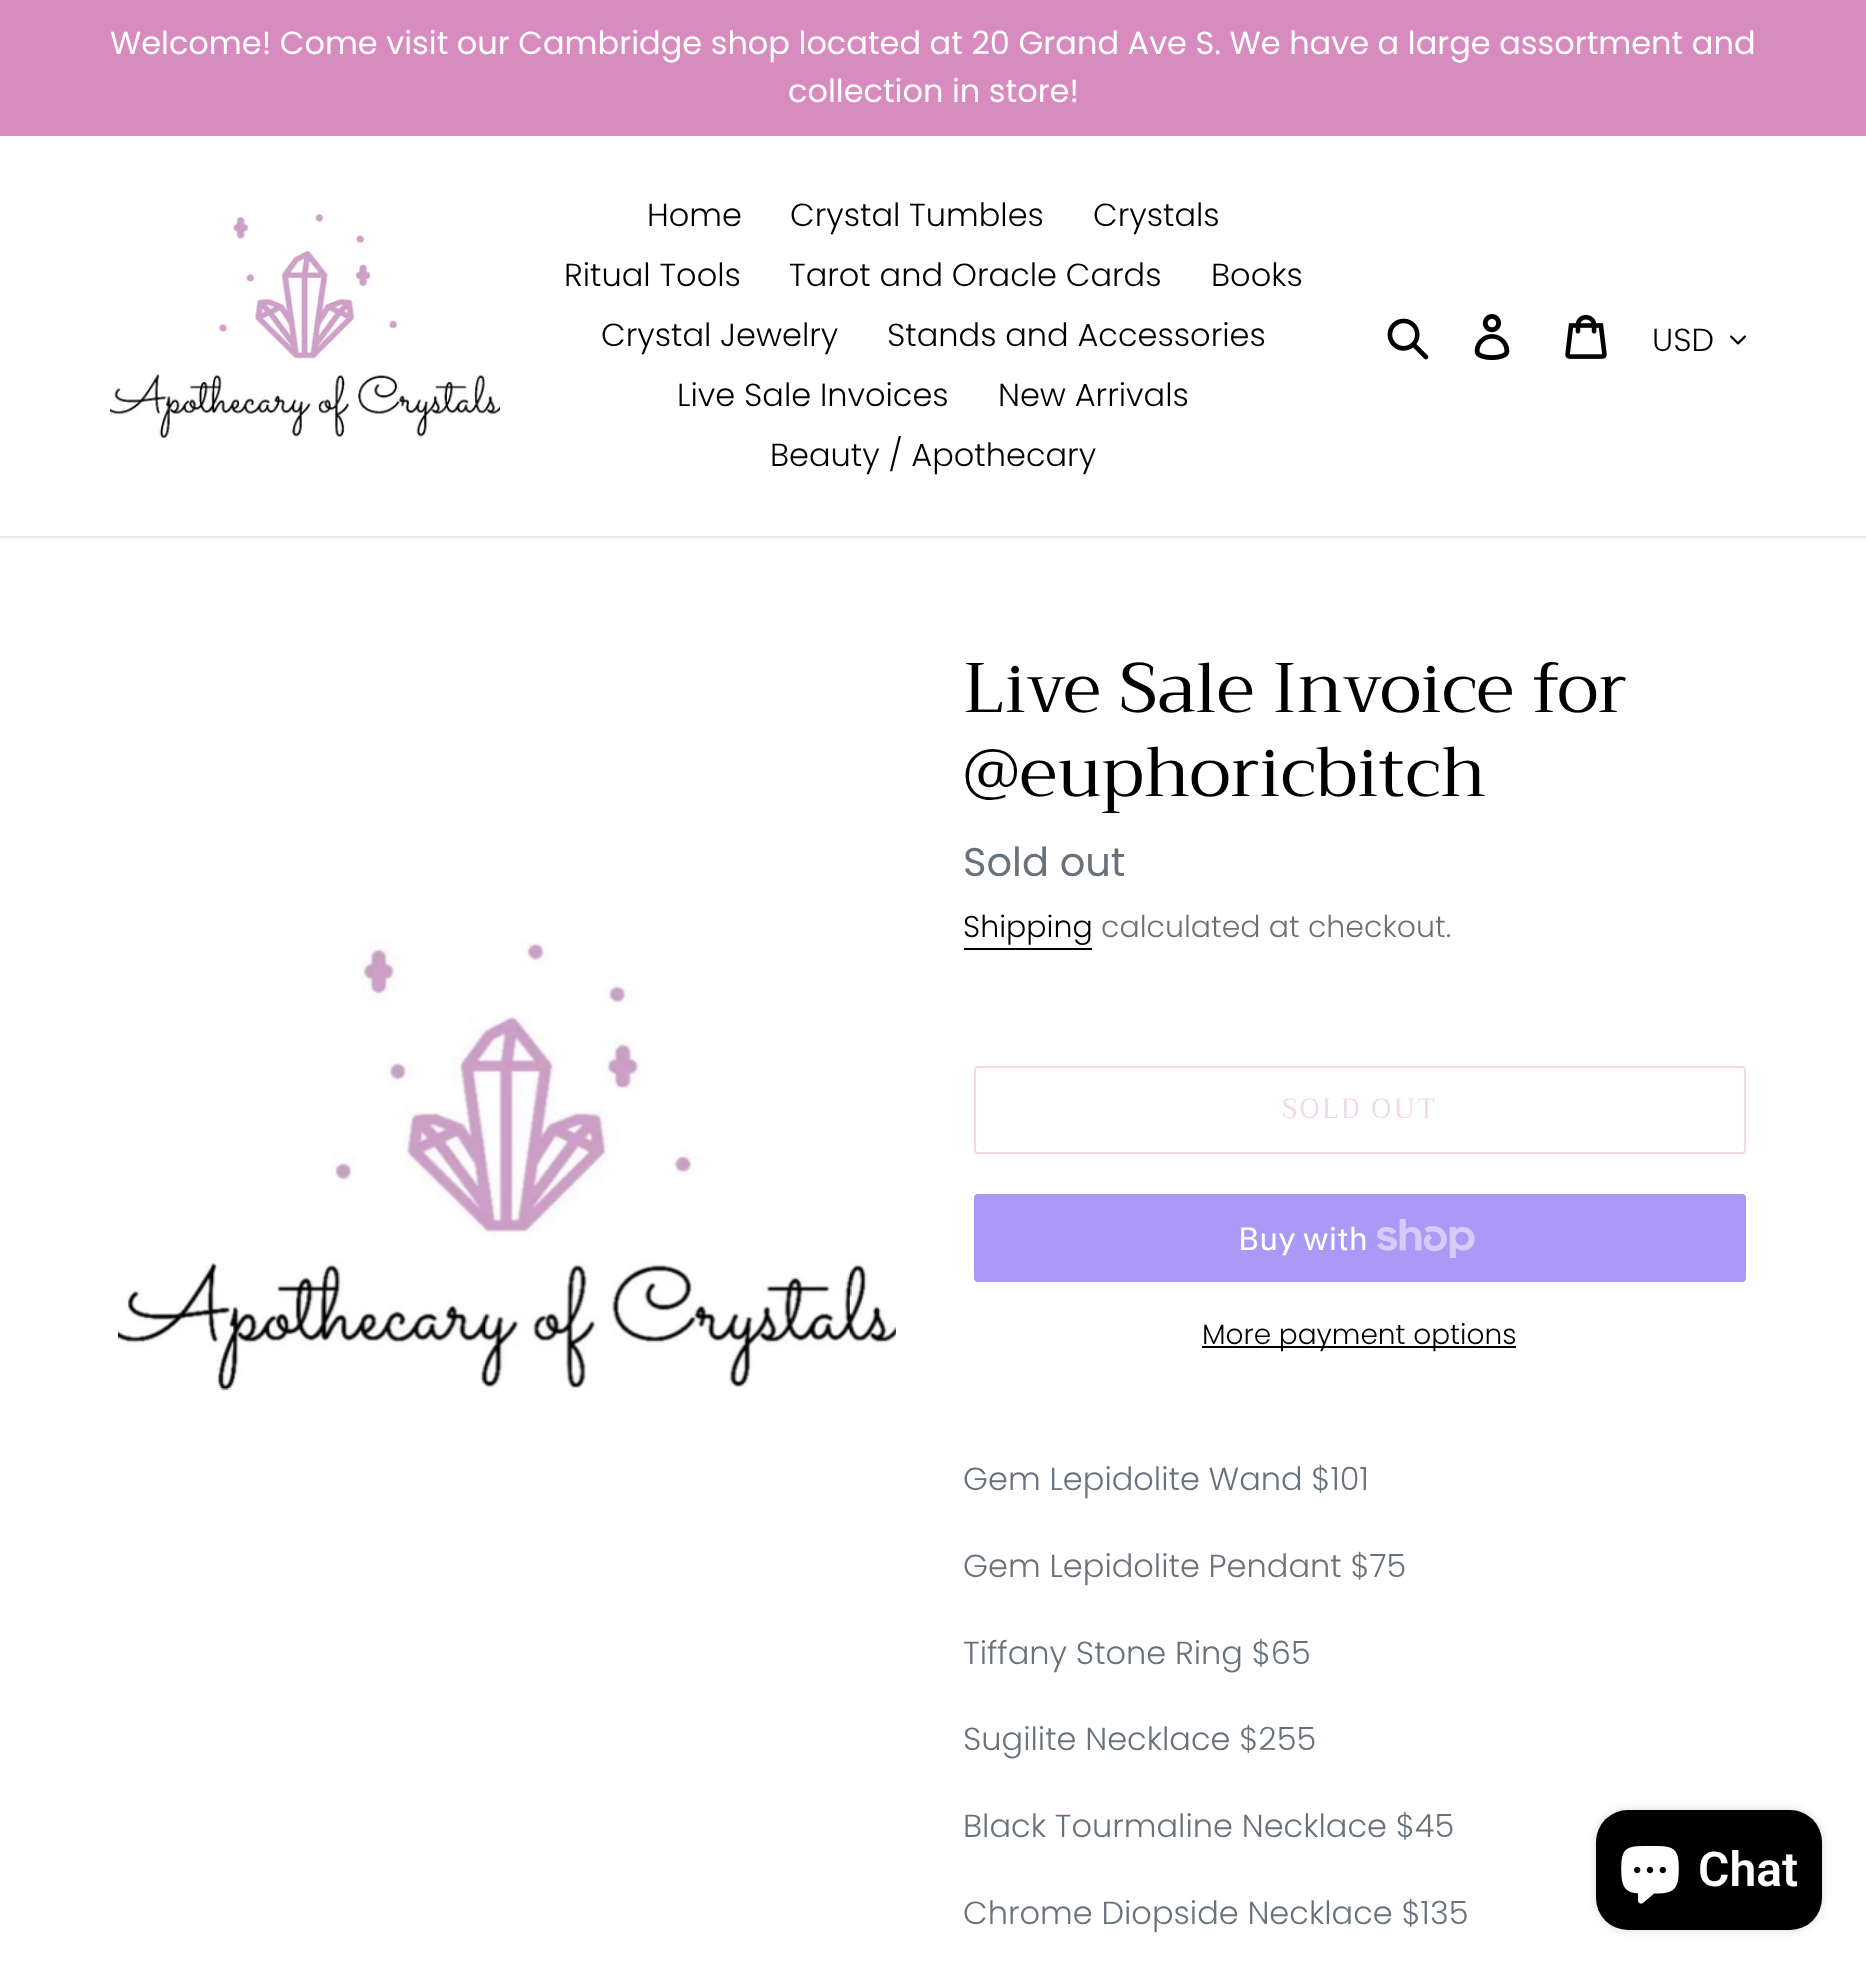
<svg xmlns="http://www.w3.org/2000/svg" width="1866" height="1971">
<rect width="100%" height="100%" fill="#fff"/>
<rect width="1866" height="136" fill="#d88bbf"/>
<text x="110" y="54" style="font-family:Poppins;font-size:32px;fill:#fff">Welcome! Come visit our Cambridge shop located at 20 Grand Ave S. We have a large assortment and</text>
<text x="788" y="102" style="font-family:Poppins;font-size:32px;fill:#fff">collection in store!</text>
<rect y="536" width="1866" height="2" fill="#e8e9eb"/>
<image x="110" y="211" width="390" height="228" href="media/1.png"/>
<text x="647" y="226" style="font-family:Poppins;font-size:32px;font-weight:300;fill:#000">Home</text>
<text x="790" y="226" style="font-family:Poppins;font-size:32px;font-weight:300;fill:#000">Crystal Tumbles</text>
<text x="1093" y="226" style="font-family:Poppins;font-size:32px;font-weight:300;fill:#000">Crystals</text>
<text x="564" y="286" style="font-family:Poppins;font-size:32px;font-weight:300;fill:#000">Ritual Tools</text>
<text x="789" y="286" style="font-family:Poppins;font-size:32px;font-weight:300;fill:#000">Tarot and Oracle Cards</text>
<text x="1211" y="286" style="font-family:Poppins;font-size:32px;font-weight:300;fill:#000">Books</text>
<text x="601" y="346" style="font-family:Poppins;font-size:32px;font-weight:300;fill:#000">Crystal Jewelry</text>
<text x="887" y="346" style="font-family:Poppins;font-size:32px;font-weight:300;fill:#000">Stands and Accessories</text>
<text x="677" y="406" style="font-family:Poppins;font-size:32px;font-weight:300;fill:#000">Live Sale Invoices</text>
<text x="998" y="406" style="font-family:Poppins;font-size:32px;font-weight:300;fill:#000">New Arrivals</text>
<text x="770" y="466" style="font-family:Poppins;font-size:32px;font-weight:300;fill:#000">Beauty / Apothecary</text>
<image x="1387" y="318" width="42" height="42" href="media/2.png"/>
<image x="1474" y="314" width="36" height="46" href="media/3.png"/>
<image x="1565" y="314" width="42" height="45" href="media/4.png"/>
<text x="1652" y="351" style="font-family:Poppins;font-size:32px;font-weight:300;fill:#000">USD</text>
<image x="1730" y="335" width="16" height="10" href="media/5.png"/>
<image x="118" y="942" width="778" height="450" href="media/6.png"/>
<text x="963" y="712" style="font-family:Trirong;font-size:70px;fill:#000">Live Sale Invoice for</text>
<text x="963" y="796" style="font-family:Trirong;font-size:70px;fill:#000">@euphoricbitch</text>
<text x="963" y="876" style="font-family:Poppins;font-size:40px;fill:#69727b">Sold out</text>
<text x="963" y="937" style="font-family:Poppins;font-size:30px;font-weight:300;fill:#000">Shipping</text>
<rect x="964" y="948" width="128" height="2" fill="#000"/>
<text x="1101" y="937" style="font-family:Poppins;font-size:30px;font-weight:300;fill:#69727b">calculated at checkout.</text>
<rect x="975" y="1067" width="770" height="86" rx="3" fill="none" stroke="#f2d9ea" stroke-width="2"/>
<text x="1282" y="1118" style="font-family:Trirong;font-size:28px;letter-spacing:2.25px;fill:#f2d9ea">SOLD OUT</text>
<rect x="974" y="1194" width="772" height="88" rx="4" fill="#aa99f5"/>
<text x="1238" y="1250" style="font-family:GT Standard;font-size:32px;fill:#fff">Buy with</text>
<image x="1377" y="1219" width="98" height="39" href="media/7.png"/>
<rect x="1202" y="1346" width="314" height="2" fill="#000"/>
<text x="1202" y="1344" style="font-family:Poppins;font-size:28px;font-weight:300;fill:#000">More payment options</text>
<text x="963" y="1490" style="font-family:Poppins;font-size:32px;font-weight:300;fill:#69727b">Gem Lepidolite Wand $101</text>
<text x="963" y="1577" style="font-family:Poppins;font-size:32px;font-weight:300;fill:#69727b">Gem Lepidolite Pendant $75</text>
<text x="963" y="1664" style="font-family:Poppins;font-size:32px;font-weight:300;fill:#69727b">Tiffany Stone Ring $65</text>
<text x="963" y="1750" style="font-family:Poppins;font-size:32px;font-weight:300;fill:#69727b">Sugilite Necklace $255</text>
<text x="963" y="1837" style="font-family:Poppins;font-size:32px;font-weight:300;fill:#69727b">Black Tourmaline Necklace $45</text>
<text x="963" y="1924" style="font-family:Poppins;font-size:32px;font-weight:300;fill:#69727b">Chrome Diopside Necklace $135</text>
<rect x="1596" y="1810" width="226" height="120" rx="32" fill="#00000026" filter="blur(5px)"/>
<rect x="1596" y="1810" width="226" height="120" rx="32" fill="#000"/>
<image x="1621" y="1846" width="58" height="58" href="media/8.png"/>
<text x="1698" y="1886" style="font-family:Roboto;font-size:48px;font-weight:600;fill:#fff">Chat</text>
</svg>
